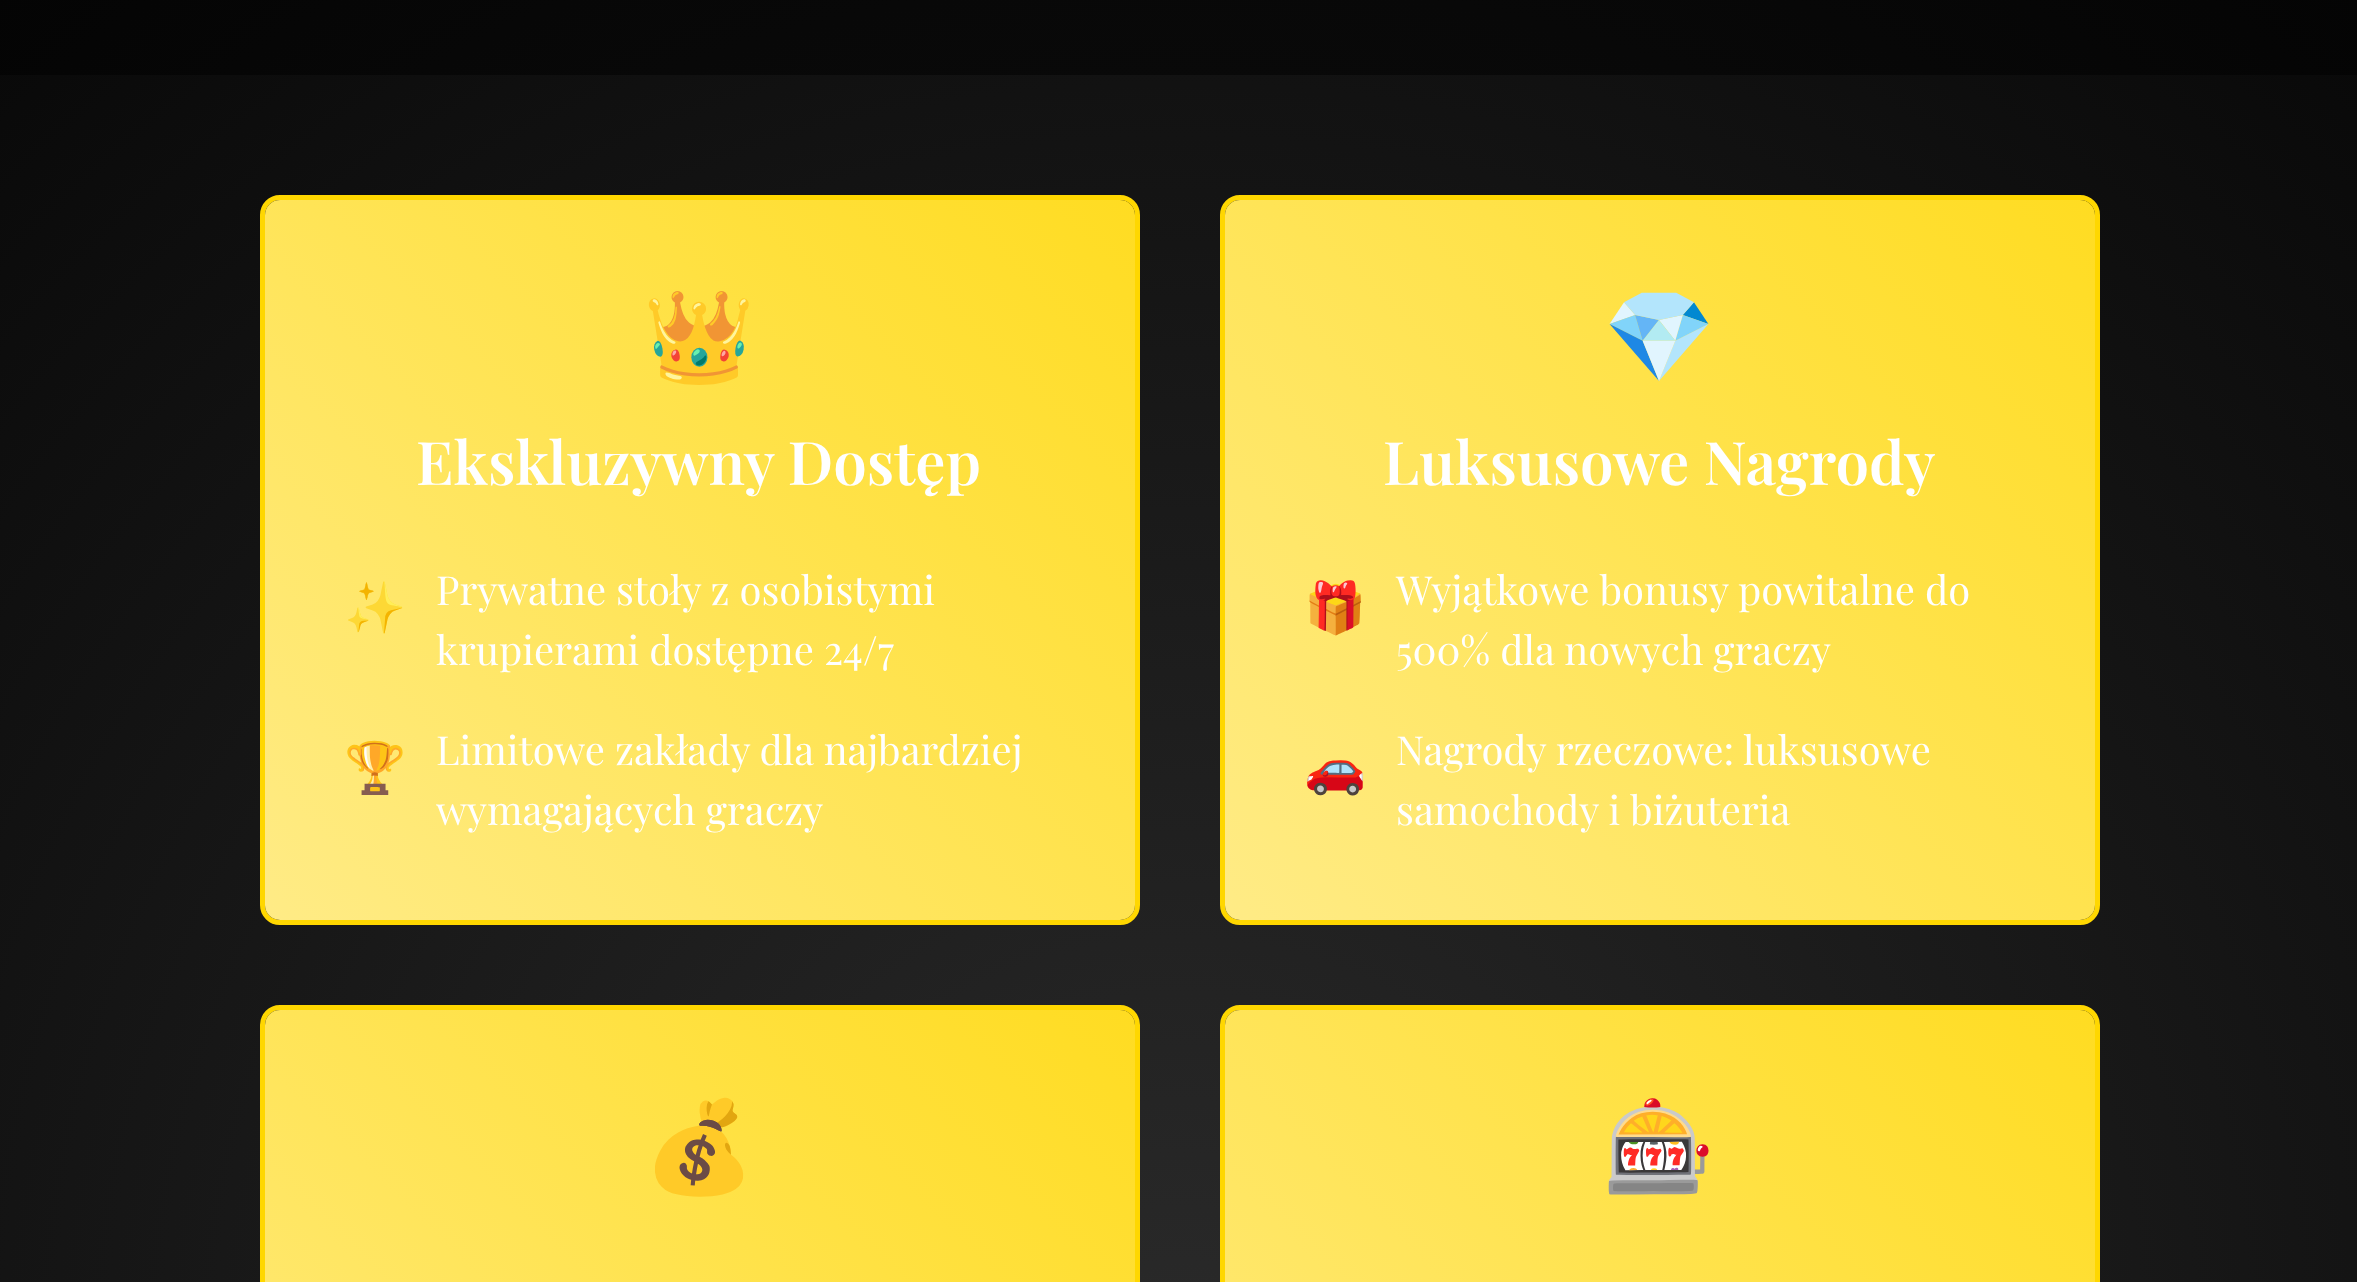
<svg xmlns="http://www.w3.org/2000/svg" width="2357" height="1282">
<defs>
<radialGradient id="g1" gradientUnits="userSpaceOnUse" cx="1179" cy="1368" r="2247"><stop offset="0" stop-color="#2a2a2a"/><stop offset="1" stop-color="#000"/></radialGradient>
<radialGradient id="g2" gradientUnits="userSpaceOnUse" cx="1179" cy="1368" r="2247"><stop offset="0" stop-color="#151515"/><stop offset="1" stop-color="#000"/></radialGradient>
<linearGradient id="g3" gradientUnits="userSpaceOnUse" x1="410" y1="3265" x2="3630" y2="45"><stop offset="0" stop-color="#ffd700"/><stop offset="0.33" stop-color="#ffec8b"/><stop offset="0.67" stop-color="#ffd700"/><stop offset="1" stop-color="#d4af37"/></linearGradient>
<linearGradient id="g4" gradientUnits="userSpaceOnUse" x1="1370" y1="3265" x2="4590" y2="45"><stop offset="0" stop-color="#ffd700"/><stop offset="0.33" stop-color="#ffec8b"/><stop offset="0.67" stop-color="#ffd700"/><stop offset="1" stop-color="#d4af37"/></linearGradient>
<linearGradient id="g5" gradientUnits="userSpaceOnUse" x1="410" y1="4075" x2="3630" y2="855"><stop offset="0" stop-color="#ffd700"/><stop offset="0.33" stop-color="#ffec8b"/><stop offset="0.67" stop-color="#ffd700"/><stop offset="1" stop-color="#d4af37"/></linearGradient>
<linearGradient id="g6" gradientUnits="userSpaceOnUse" x1="1370" y1="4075" x2="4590" y2="855"><stop offset="0" stop-color="#ffd700"/><stop offset="0.33" stop-color="#ffec8b"/><stop offset="0.67" stop-color="#ffd700"/><stop offset="1" stop-color="#d4af37"/></linearGradient>
</defs>
<rect width="100%" height="100%" fill="#fff"/>
<rect y="75" width="2357" height="1207" fill="url(#g1)"/>
<rect width="2357" height="75" fill="url(#g2)"/>
<rect x="262.5" y="197.5" width="875" height="725" rx="17.5" fill="none" stroke="#ffd700" stroke-width="5"/>
<rect x="265" y="200" width="870" height="720" rx="15" fill="url(#g3)"/>
<text x="643" y="368" style="font-family:Noto Color Emoji;font-size:90px;fill:#fff">👑</text>
<text x="416" y="485" style="font-family:Playfair Display;font-size:60px;font-weight:600;fill:#fff">Ekskluzywny Dostęp</text>
<text x="344" y="625" style="font-family:Noto Color Emoji;font-size:50px;fill:#fff">✨</text>
<text x="436" y="605" style="font-family:Playfair Display;font-size:40px;fill:#fff">Prywatne stoły z osobistymi</text>
<text x="436" y="665" style="font-family:Playfair Display;font-size:40px;fill:#fff">krupierami dostępne 24/7</text>
<text x="344" y="785" style="font-family:Noto Color Emoji;font-size:50px;fill:#fff">🏆</text>
<text x="436" y="765" style="font-family:Playfair Display;font-size:40px;fill:#fff">Limitowe zakłady dla najbardziej</text>
<text x="436" y="825" style="font-family:Playfair Display;font-size:40px;fill:#fff">wymagających graczy</text>
<rect x="1222.5" y="197.5" width="875" height="725" rx="17.5" fill="none" stroke="#ffd700" stroke-width="5"/>
<rect x="1225" y="200" width="870" height="720" rx="15" fill="url(#g4)"/>
<text x="1603" y="368" style="font-family:Noto Color Emoji;font-size:90px;fill:#fff">💎</text>
<text x="1383" y="485" style="font-family:Playfair Display;font-size:60px;font-weight:600;fill:#fff">Luksusowe Nagrody</text>
<text x="1304" y="625" style="font-family:Noto Color Emoji;font-size:50px;fill:#fff">🎁</text>
<text x="1396" y="605" style="font-family:Playfair Display;font-size:40px;fill:#fff">Wyjątkowe bonusy powitalne do</text>
<text x="1396" y="665" style="font-family:Playfair Display;font-size:40px;fill:#fff">500% dla nowych graczy</text>
<text x="1304" y="785" style="font-family:Noto Color Emoji;font-size:50px;fill:#fff">🚗</text>
<text x="1396" y="765" style="font-family:Playfair Display;font-size:40px;fill:#fff">Nagrody rzeczowe: luksusowe</text>
<text x="1396" y="825" style="font-family:Playfair Display;font-size:40px;fill:#fff">samochody i biżuteria</text>
<rect x="262.5" y="1007.5" width="875" height="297" rx="17.5" fill="none" stroke="#ffd700" stroke-width="5"/>
<rect x="265" y="1010" width="870" height="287" rx="15" fill="url(#g5)"/>
<text x="643" y="1178" style="font-family:Noto Color Emoji;font-size:90px;fill:#fff">💰</text>
<rect x="1222.5" y="1007.5" width="875" height="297" rx="17.5" fill="none" stroke="#ffd700" stroke-width="5"/>
<rect x="1225" y="1010" width="870" height="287" rx="15" fill="url(#g6)"/>
<text x="1603" y="1178" style="font-family:Noto Color Emoji;font-size:90px;fill:#fff">🎰</text>
</svg>
